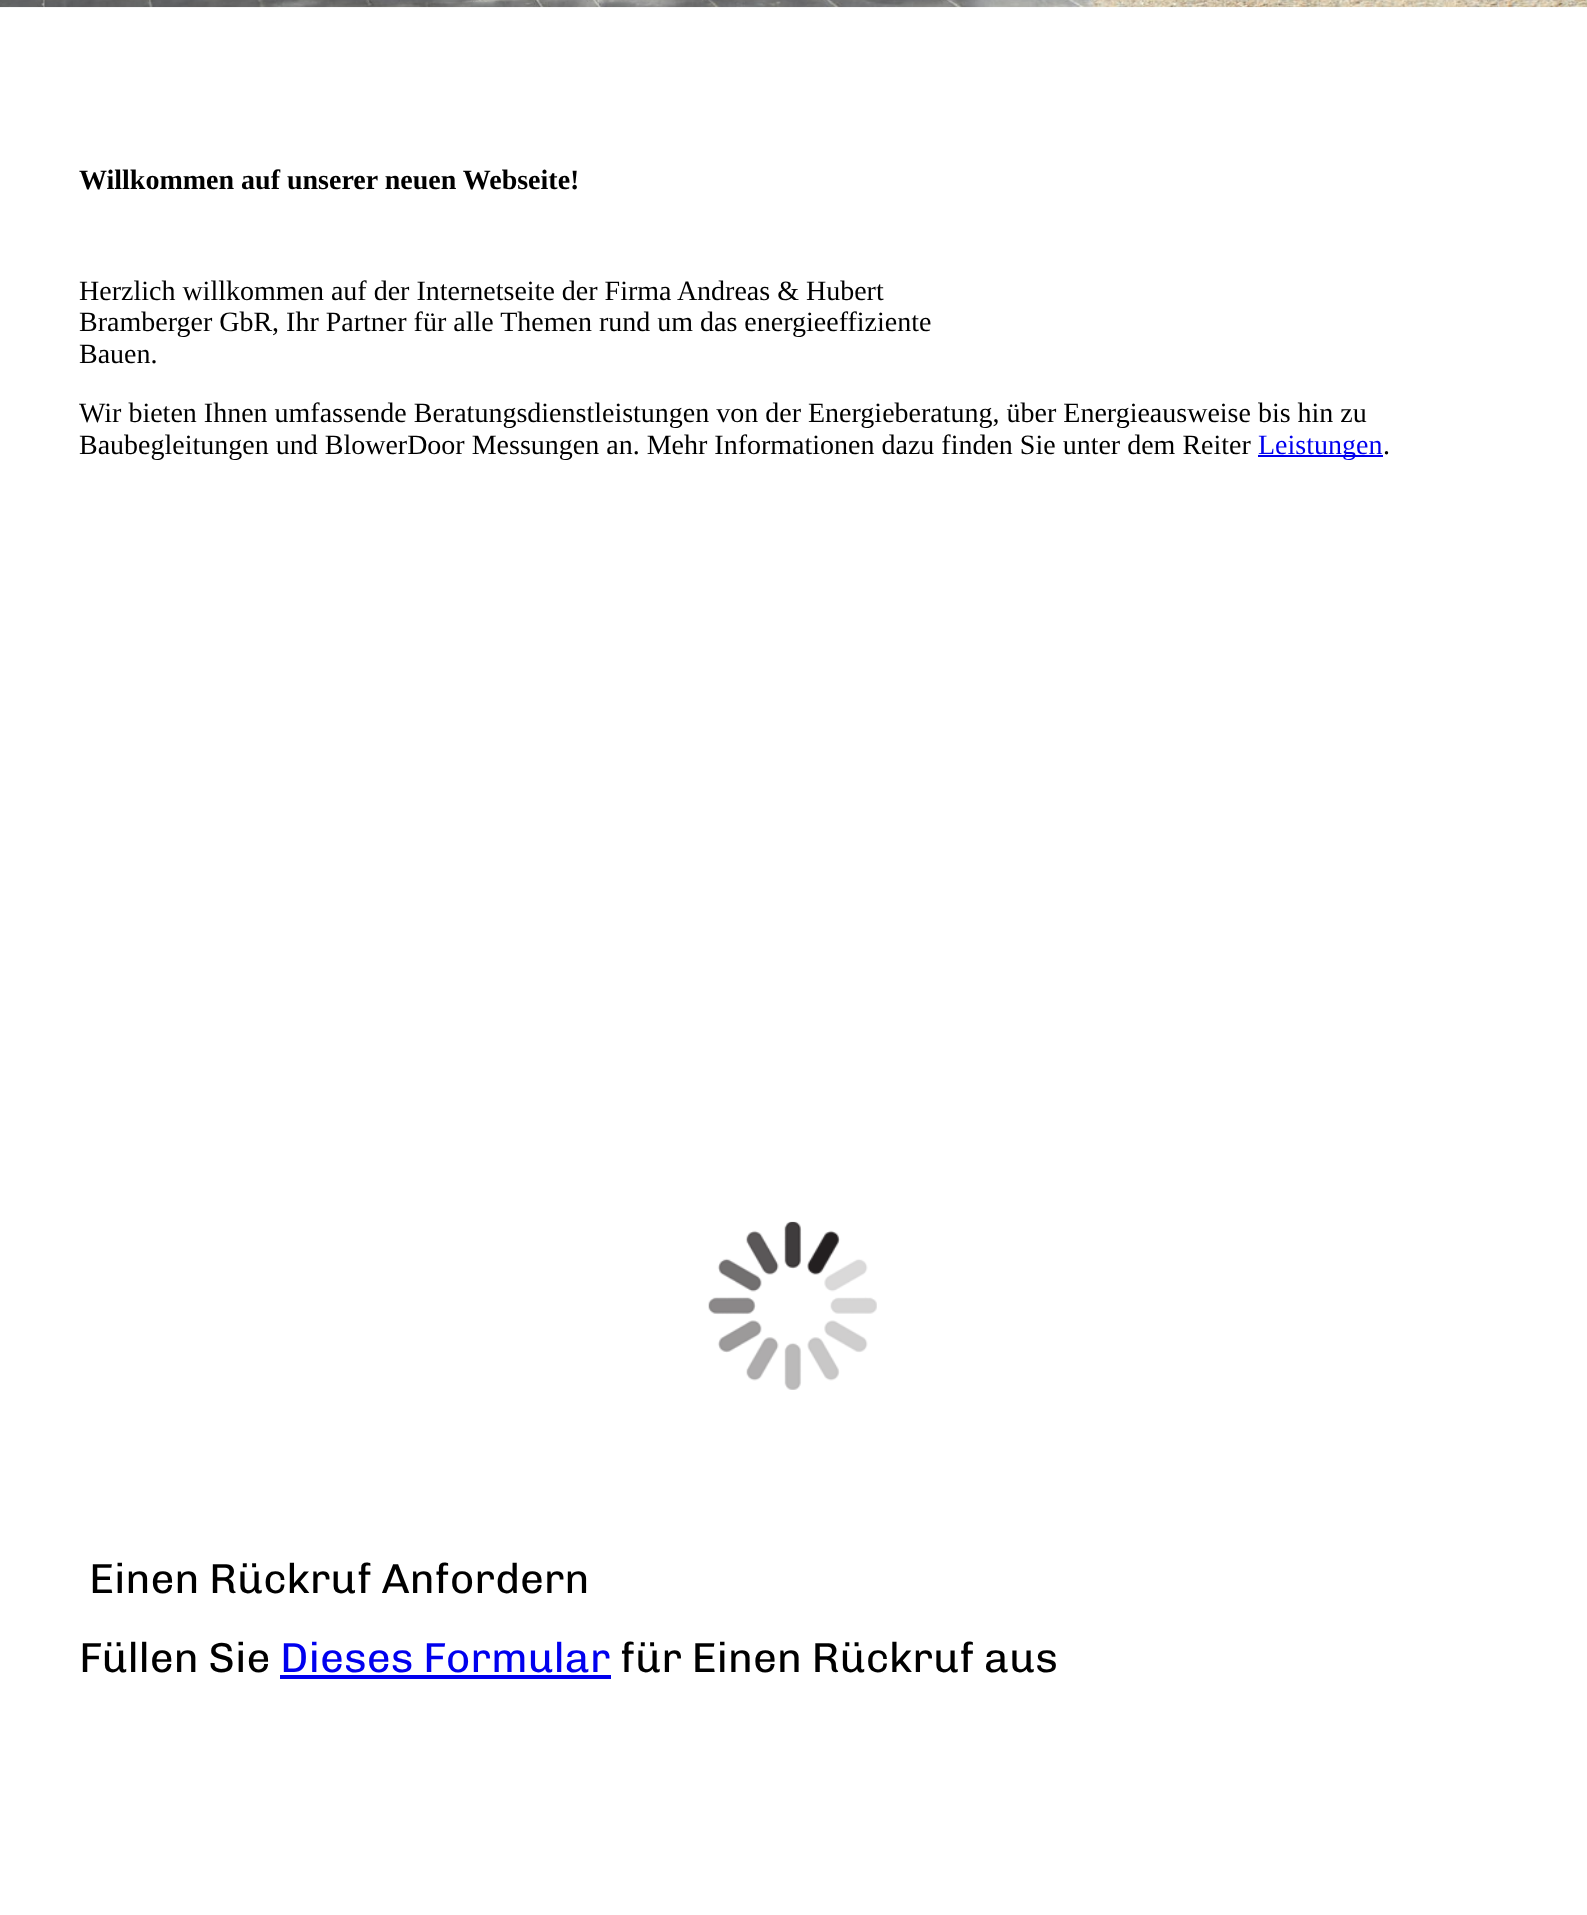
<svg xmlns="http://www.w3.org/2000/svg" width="1587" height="1915">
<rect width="100%" height="100%" fill="#fff"/>
<image x="0" y="0" width="1587" height="8" href="media/1.png"/>
<text x="79" y="189" style="font-family:Liberation Serif;font-size:28px;font-weight:bold;fill:#000">Willkommen auf unserer neuen Webseite!</text>
<text x="79" y="300" style="font-family:Liberation Serif;font-size:28px;fill:#000">Herzlich willkommen auf der Internetseite der Firma Andreas &amp; Hubert</text>
<text x="79" y="331" style="font-family:Liberation Serif;font-size:28px;fill:#000">Bramberger GbR, Ihr Partner für alle Themen rund um das energieeffiziente</text>
<text x="79" y="363" style="font-family:Liberation Serif;font-size:28px;fill:#000">Bauen.</text>
<text x="79" y="422" style="font-family:Liberation Serif;font-size:28px;fill:#000">Wir bieten Ihnen umfassende Beratungsdienstleistungen von der Energieberatung, über Energieausweise bis hin zu</text>
<text x="79" y="454" style="font-family:Liberation Serif;font-size:28px;fill:#000">Baubegleitungen und BlowerDoor Messungen an. Mehr Informationen dazu finden Sie unter dem Reiter</text>
<rect x="1258" y="455" width="125" height="2" fill="#00e"/>
<text x="1258" y="454" style="font-family:Liberation Serif;font-size:28px;fill:#00e">Leistungen</text>
<text x="1383" y="454" style="font-family:Liberation Serif;font-size:28px;fill:#000">.</text>
<image x="708" y="1221" width="169" height="169" href="media/2.png"/>
<text x="89" y="1593" style="font-family:Chivo;font-size:42px;fill:#000">Einen Rückruf Anfordern</text>
<text x="79" y="1672" style="font-family:Chivo;font-size:42px;fill:#000">Füllen Sie</text>
<text x="280" y="1672" style="font-family:Chivo;font-size:42px;fill:#00e">Dieses Formular</text>
<rect x="280" y="1675" width="331" height="4" fill="#00e"/>
<text x="620" y="1672" style="font-family:Chivo;font-size:42px;fill:#000">für Einen Rückruf aus</text>
</svg>
